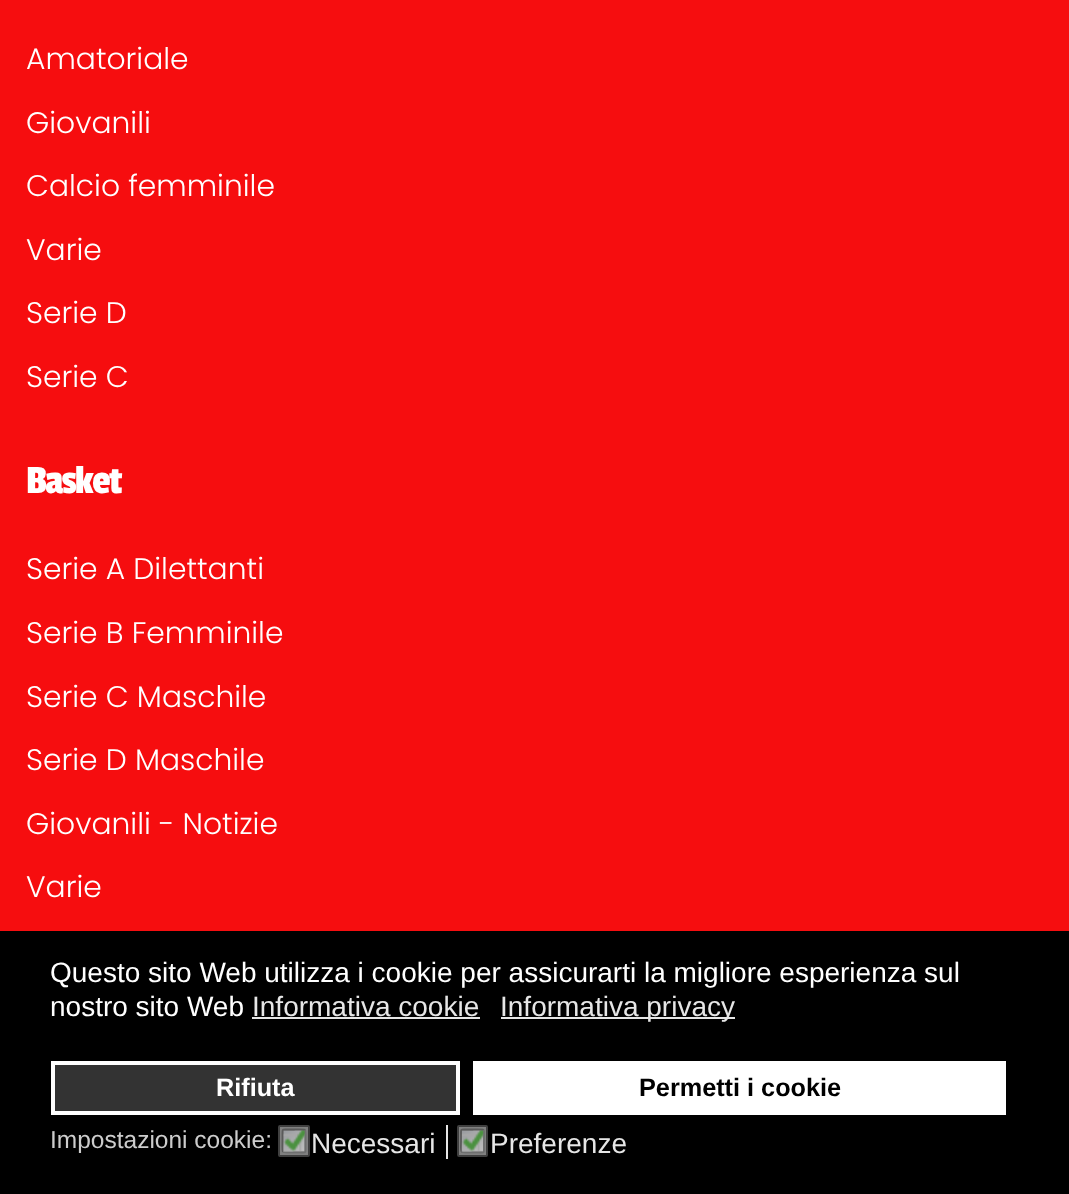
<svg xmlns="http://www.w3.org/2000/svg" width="1069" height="1194">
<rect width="100%" height="100%" fill="#f60d0f"/>
<text x="26" y="69" style="font-family:Poppins;font-size:29.75px;font-weight:300;fill:#fff">Amatoriale</text>
<text x="26" y="133" style="font-family:Poppins;font-size:29.75px;font-weight:300;fill:#fff">Giovanili</text>
<text x="26" y="196" style="font-family:Poppins;font-size:29.75px;font-weight:300;fill:#fff">Calcio femminile</text>
<text x="26" y="260" style="font-family:Poppins;font-size:29.75px;font-weight:300;fill:#fff">Varie</text>
<text x="26" y="323" style="font-family:Poppins;font-size:29.75px;font-weight:300;fill:#fff">Serie D</text>
<text x="26" y="387" style="font-family:Poppins;font-size:29.75px;font-weight:300;fill:#fff">Serie C</text>
<text x="26" y="493" style="font-family:Passion One;font-size:42px;letter-spacing:-1.5px;fill:#fff">Basket</text>
<text x="26" y="579" style="font-family:Poppins;font-size:29.75px;font-weight:300;fill:#fff">Serie A Dilettanti</text>
<text x="26" y="643" style="font-family:Poppins;font-size:29.75px;font-weight:300;fill:#fff">Serie B Femminile</text>
<text x="26" y="707" style="font-family:Poppins;font-size:29.75px;font-weight:300;fill:#fff">Serie C Maschile</text>
<text x="26" y="770" style="font-family:Poppins;font-size:29.75px;font-weight:300;fill:#fff">Serie D Maschile</text>
<text x="26" y="834" style="font-family:Poppins;font-size:29.75px;font-weight:300;fill:#fff">Giovanili - Notizie</text>
<text x="26" y="897" style="font-family:Poppins;font-size:29.75px;font-weight:300;fill:#fff">Varie</text>
<rect y="931" width="1069" height="263" fill="#000"/>
<text x="50" y="982" style="font-family:Liberation Sans;font-size:28px;fill:#fff">Questo sito Web utilizza i cookie per assicurarti la migliore esperienza sul</text>
<text x="50" y="1016" style="font-family:Liberation Sans;font-size:28px;fill:#fff">nostro sito Web</text>
<text x="252" y="1016" style="font-family:Liberation Sans;font-size:28px;fill:#e6e6e6">Informativa cookie</text>
<rect x="252" y="1017" width="228" height="2" fill="#e6e6e6"/>
<rect x="501" y="1017" width="234" height="2" fill="#e6e6e6"/>
<text x="500" y="1016" style="font-family:Liberation Sans;font-size:28px;fill:#e6e6e6">Informativa privacy</text>
<rect x="53" y="1063" width="405" height="50" fill="#333" stroke="#fff" stroke-width="4"/>
<text x="216" y="1096" style="font-family:Liberation Sans;font-size:25.25px;font-weight:bold;fill:#fff">Rifiuta</text>
<rect x="473" y="1061" width="533" height="54" fill="#fff"/>
<text x="639" y="1096" style="font-family:Liberation Sans;font-size:25.25px;font-weight:bold;fill:#000">Permetti i cookie</text>
<text x="50" y="1148" style="font-family:Liberation Sans;font-size:24.5px;fill:#ccc">Impostazioni cookie:</text>
<rect x="279" y="1126" width="30" height="30" rx="1" fill="#808080" stroke="#404040" stroke-width="2"/>
<image x="282" y="1128" width="24" height="26" href="media/1.png"/>
<path d="M305 1130c1 .5 .5 9.5 .5 11v7c0 5 .5 4.5-4.5 4.5h-7c-1.5 0-10.5 .5-11-.5" fill="none" stroke="#6e6f6f" stroke-width="1.8"/>
<path d="M283 1152c-1-.5-.5-9.5-.5-11v-7c0-5-.5-4.5 4.5-4.5h7c1.5 0 10.5-.5 11 .5" fill="none" stroke="#5a5a5a" stroke-width="1.8"/>
<rect x="446" y="1125" width="2" height="34" fill="#e6e6e6"/>
<text x="311" y="1153" style="font-family:Liberation Sans;font-size:28px;fill:#e6e6e6">Necessari</text>
<rect x="458" y="1126" width="29" height="30" rx="1" fill="#808080" stroke="#404040" stroke-width="2"/>
<image x="460" y="1128" width="25" height="26" href="media/2.png"/>
<path d="M483.5 1130c1 .5 .5 9.5 .5 11v7c0 5 .5 4.5-4.5 4.5h-7c-1.5 0-10.5 .5-11-.5" fill="none" stroke="#6e6f6f" stroke-width="1.8"/>
<path d="M461.5 1152c-1-.5-.5-9.5-.5-11v-7c0-5-.5-4.5 4.5-4.5h7c1.5 0 10.5-.5 11 .5" fill="none" stroke="#5a5a5a" stroke-width="1.8"/>
<text x="490" y="1153" style="font-family:Liberation Sans;font-size:28px;fill:#e6e6e6">Preferenze</text>
</svg>
